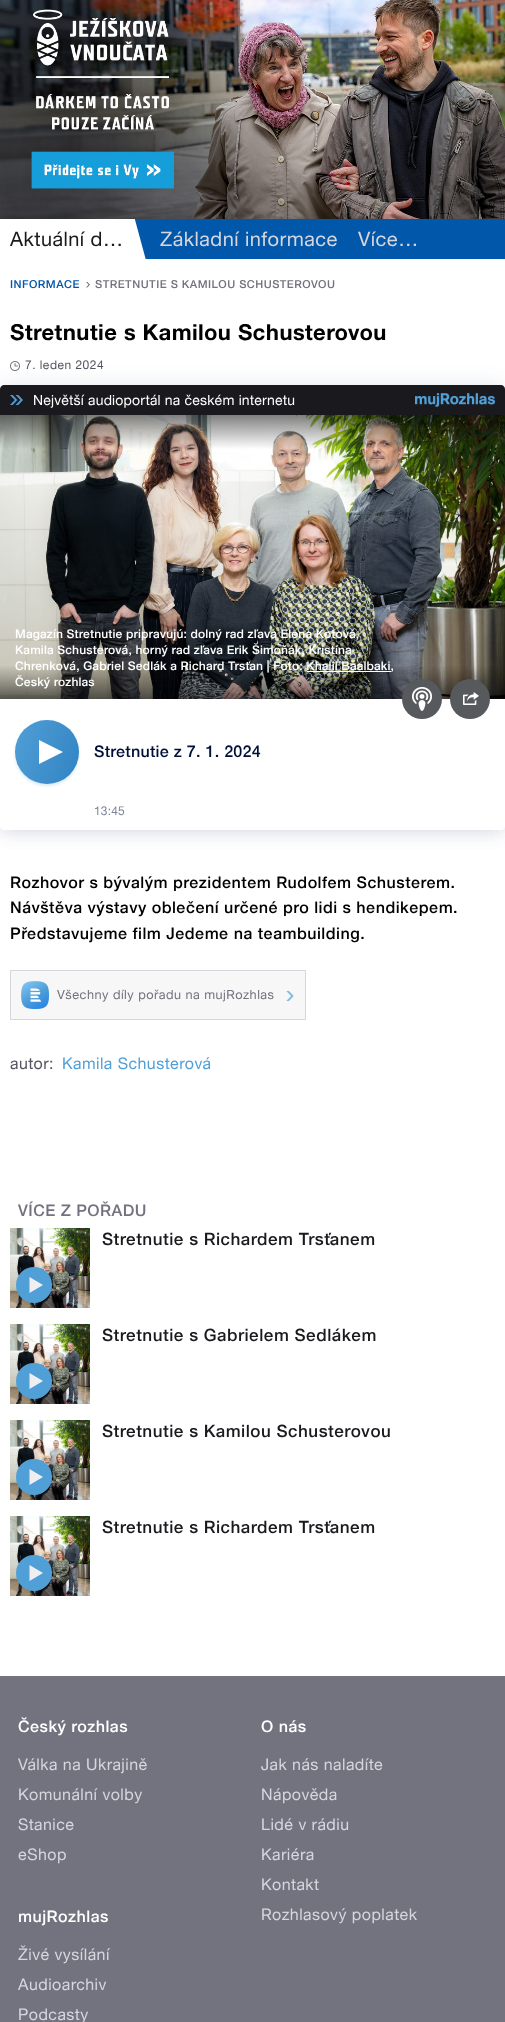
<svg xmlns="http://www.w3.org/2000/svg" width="505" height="2022">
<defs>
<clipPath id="clip1"><rect y="219" width="150" height="40"/></clipPath>
<clipPath id="clip2"><path d="M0 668h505v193h-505zm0 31h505v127c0 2-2 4-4 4h-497c-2 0-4-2-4-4z" clip-rule="evenodd"/></clipPath>
<linearGradient id="g1" gradientUnits="userSpaceOnUse" x1="253" y1="699" x2="253" y2="665"><stop offset="0" stop-color="#000" stop-opacity="0.5"/><stop offset="1" stop-color="#000" stop-opacity="0"/></linearGradient>
<linearGradient id="g2" gradientUnits="userSpaceOnUse" x1="8" y1="737" x2="86" y2="767"><stop offset="0" stop-color="#519fd7"/><stop offset="1" stop-color="#3183c3"/></linearGradient>
</defs>
<rect width="100%" height="100%" fill="#fff"/>
<image x="0" y="0" width="505" height="219" href="media/1.png"/>
<text x="10" y="246" style="font-family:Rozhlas;font-size:20px;letter-spacing:0.48px;fill:#1a1a1e">Aktuální d…</text>
<g clip-path="url(#clip1)">
<path d="M134 216l49-13l13 48l-49 13z" fill="#0157aa"/>
</g>
<rect x="150" y="219" width="355" height="40" fill="#0157aa"/>
<text x="160" y="246" style="font-family:Rozhlas;font-size:20px;letter-spacing:0.48px;fill:#d6d6de">Základní informace</text>
<text x="358" y="246" style="font-family:Rozhlas;font-size:20px;letter-spacing:0.48px;fill:#d6d6de">Více…</text>
<image x="86" y="282" width="4" height="6" href="media/2.png"/>
<text x="10" y="288" style="font-family:Rozhlas;font-size:11px;font-weight:500;letter-spacing:0.48px;fill:#0157aa">INFORMACE</text>
<text x="95" y="288" style="font-family:Rozhlas;font-size:11px;font-weight:500;letter-spacing:0.48px;fill:#73737f">STRETNUTIE S KAMILOU SCHUSTEROVOU</text>
<text x="10" y="340" style="font-family:Rozhlas;font-size:22px;font-weight:bold;letter-spacing:0.48px;fill:#000">Stretnutie s Kamilou Schusterovou</text>
<image x="10" y="361" width="10" height="10" href="media/3.png"/>
<text x="25" y="369" style="font-family:Rozhlas;font-size:12px;letter-spacing:0.48px;fill:#555561">7. leden 2024</text>
<rect y="385" width="505" height="445" rx="4" fill="#38447521" filter="blur(10px)"/>
<rect y="385" width="505" height="445" rx="4" fill="#fff"/>
<path d="M4 385h497c2 0 4 2 4 4v26h-505v-26c0-2 2-4 4-4z" fill="#1a1a1e"/>
<image x="10" y="395" width="13" height="10" href="media/4.png"/>
<text x="33" y="405" style="font-family:Rozhlas;font-size:14px;letter-spacing:0.2px;fill:#fff">Největší audioportál na českém internetu</text>
<image x="415" y="393" width="80" height="14" href="media/5.png"/>
<image x="0" y="415" width="505" height="284" href="media/6.png"/>
<text x="15" y="638" style="font-family:Rozhlas;font-size:12px;font-weight:500;letter-spacing:0.15px;fill:#fff">Magazín Stretnutie pripravujú: dolný rad zľava Elena Kotová,</text>
<text x="15" y="654" style="font-family:Rozhlas;font-size:12px;font-weight:500;letter-spacing:0.15px;fill:#fff">Kamila Schusterová, horný rad zľava Erik Šimoňák, Kristína</text>
<g clip-path="url(#clip2)">
<rect y="699" width="505" height="131" rx="4" fill="#38447521" filter="blur(10px)"/>
</g>
<rect y="666" width="505" height="33" fill="url(#g1)"/>
<text x="15" y="670" style="font-family:Rozhlas;font-size:12px;font-weight:500;letter-spacing:0.15px;fill:#fff">Chrenková, Gabriel Sedlák a Richard Trsťan | Foto: Khalil Baalbaki,</text>
<rect x="307" y="671" width="84" height="1" fill="#fff"/>
<text x="15" y="686" style="font-family:Rozhlas;font-size:12px;font-weight:500;letter-spacing:0.15px;fill:#fff">Český rozhlas</text>
<circle cx="422" cy="699" r="20" fill="#575a5d"/>
<image x="411" y="687" width="22" height="24" href="media/7.png"/>
<circle cx="470" cy="699" r="20" fill="#575a5d"/>
<image x="463" y="692" width="16" height="13" href="media/8.png"/>
<rect x="15" y="722" width="64" height="64" rx="32" fill="#3183c330" filter="blur(1.5px)"/>
<circle cx="47" cy="752" r="32" fill="url(#g2)"/>
<path d="M39 764v-24l24 12z" fill="#fff"/>
<text x="94" y="757" style="font-family:Rozhlas;font-size:16px;font-weight:500;letter-spacing:0.25px;fill:#000f37">Stretnutie z 7. 1. 2024</text>
<text x="94" y="815" style="font-family:Rozhlas;font-size:12px;letter-spacing:0.15px;fill:#7d8599">13:45</text>
<text x="10" y="888" style="font-family:Rozhlas;font-size:16px;font-weight:500;letter-spacing:0.48px;fill:#000">Rozhovor s bývalým prezidentem Rudolfem Schusterem.</text>
<text x="10" y="913" style="font-family:Rozhlas;font-size:16px;font-weight:500;letter-spacing:0.48px;fill:#000">Návštěva výstavy oblečení určené pro lidi s hendikepem.</text>
<text x="10" y="939" style="font-family:Rozhlas;font-size:16px;font-weight:500;letter-spacing:0.48px;fill:#000">Představujeme film Jedeme na teambuilding.</text>
<rect x="11" y="971" width="294" height="48" fill="#f7f7f8"/>
<image x="21" y="981" width="28" height="28" href="media/9.png"/>
<rect x="10.5" y="970.5" width="295" height="49" fill="none" stroke="#d6d6de"/>
<text x="57" y="999" style="font-family:Rozhlas;font-size:12.75px;letter-spacing:0.48px;fill:#73737f">Všechny díly pořadu na mujRozhlas</text>
<image x="286" y="991" width="8" height="10" href="media/10.png"/>
<text x="10" y="1069" style="font-family:Rozhlas;font-size:16px;letter-spacing:0.48px;fill:#555561">autor:</text>
<text x="62" y="1069" style="font-family:Rozhlas;font-size:16px;letter-spacing:0.48px;fill:#519fd7">Kamila Schusterová</text>
<text x="18" y="1216" style="font-family:Rozhlas;font-size:16px;font-weight:500;letter-spacing:0.48px;fill:#73737f">VÍCE Z POŘADU</text>
<image x="10" y="1228" width="80" height="80" href="media/11.png"/>
<circle cx="34" cy="1285" r="18" fill="#519fd7"/>
<path d="M29.5 1277l13.5 8l-13.5 8z" fill="#efeff2"/>
<text x="102" y="1245" style="font-family:Rozhlas;font-size:17px;font-weight:500;letter-spacing:0.48px;fill:#1a1a1e">Stretnutie s Richardem Trsťanem</text>
<image x="10" y="1324" width="80" height="80" href="media/11.png"/>
<circle cx="34" cy="1381" r="18" fill="#519fd7"/>
<path d="M29.5 1373l13.5 8l-13.5 8z" fill="#efeff2"/>
<text x="102" y="1341" style="font-family:Rozhlas;font-size:17px;font-weight:500;letter-spacing:0.48px;fill:#1a1a1e">Stretnutie s Gabrielem Sedlákem</text>
<image x="10" y="1420" width="80" height="80" href="media/11.png"/>
<circle cx="34" cy="1477" r="18" fill="#519fd7"/>
<path d="M29.5 1469l13.5 8l-13.5 8z" fill="#efeff2"/>
<text x="102" y="1437" style="font-family:Rozhlas;font-size:17px;font-weight:500;letter-spacing:0.48px;fill:#1a1a1e">Stretnutie s Kamilou Schusterovou</text>
<image x="10" y="1516" width="80" height="80" href="media/11.png"/>
<circle cx="34" cy="1573" r="18" fill="#519fd7"/>
<path d="M29.5 1565l13.5 8l-13.5 8z" fill="#efeff2"/>
<text x="102" y="1533" style="font-family:Rozhlas;font-size:17px;font-weight:500;letter-spacing:0.48px;fill:#1a1a1e">Stretnutie s Richardem Trsťanem</text>
<rect y="1676" width="505" height="346" fill="#73737f"/>
<text x="18" y="1732" style="font-family:Rozhlas;font-size:16px;font-weight:500;letter-spacing:0.48px;fill:#fff">Český rozhlas</text>
<text x="18" y="1770" style="font-family:Rozhlas;font-size:16px;letter-spacing:0.48px;fill:#d6d6de">Válka na Ukrajině</text>
<text x="18" y="1800" style="font-family:Rozhlas;font-size:16px;letter-spacing:0.48px;fill:#d6d6de">Komunální volby</text>
<text x="18" y="1830" style="font-family:Rozhlas;font-size:16px;letter-spacing:0.48px;fill:#d6d6de">Stanice</text>
<text x="18" y="1860" style="font-family:Rozhlas;font-size:16px;letter-spacing:0.48px;fill:#d6d6de">eShop</text>
<text x="18" y="1922" style="font-family:Rozhlas;font-size:16px;font-weight:500;letter-spacing:0.48px;fill:#fff">mujRozhlas</text>
<text x="18" y="1960" style="font-family:Rozhlas;font-size:16px;letter-spacing:0.48px;fill:#d6d6de">Živé vysílání</text>
<text x="18" y="1990" style="font-family:Rozhlas;font-size:16px;letter-spacing:0.48px;fill:#d6d6de">Audioarchiv</text>
<text x="18" y="2020" style="font-family:Rozhlas;font-size:16px;letter-spacing:0.48px;fill:#d6d6de">Podcasty</text>
<text x="261" y="1732" style="font-family:Rozhlas;font-size:16px;font-weight:500;letter-spacing:0.48px;fill:#fff">O nás</text>
<text x="261" y="1770" style="font-family:Rozhlas;font-size:16px;letter-spacing:0.48px;fill:#d6d6de">Jak nás naladíte</text>
<text x="261" y="1800" style="font-family:Rozhlas;font-size:16px;letter-spacing:0.48px;fill:#d6d6de">Nápověda</text>
<text x="261" y="1830" style="font-family:Rozhlas;font-size:16px;letter-spacing:0.48px;fill:#d6d6de">Lidé v rádiu</text>
<text x="261" y="1860" style="font-family:Rozhlas;font-size:16px;letter-spacing:0.48px;fill:#d6d6de">Kariéra</text>
<text x="261" y="1890" style="font-family:Rozhlas;font-size:16px;letter-spacing:0.48px;fill:#d6d6de">Kontakt</text>
<text x="261" y="1920" style="font-family:Rozhlas;font-size:16px;letter-spacing:0.48px;fill:#d6d6de">Rozhlasový poplatek</text>
</svg>
